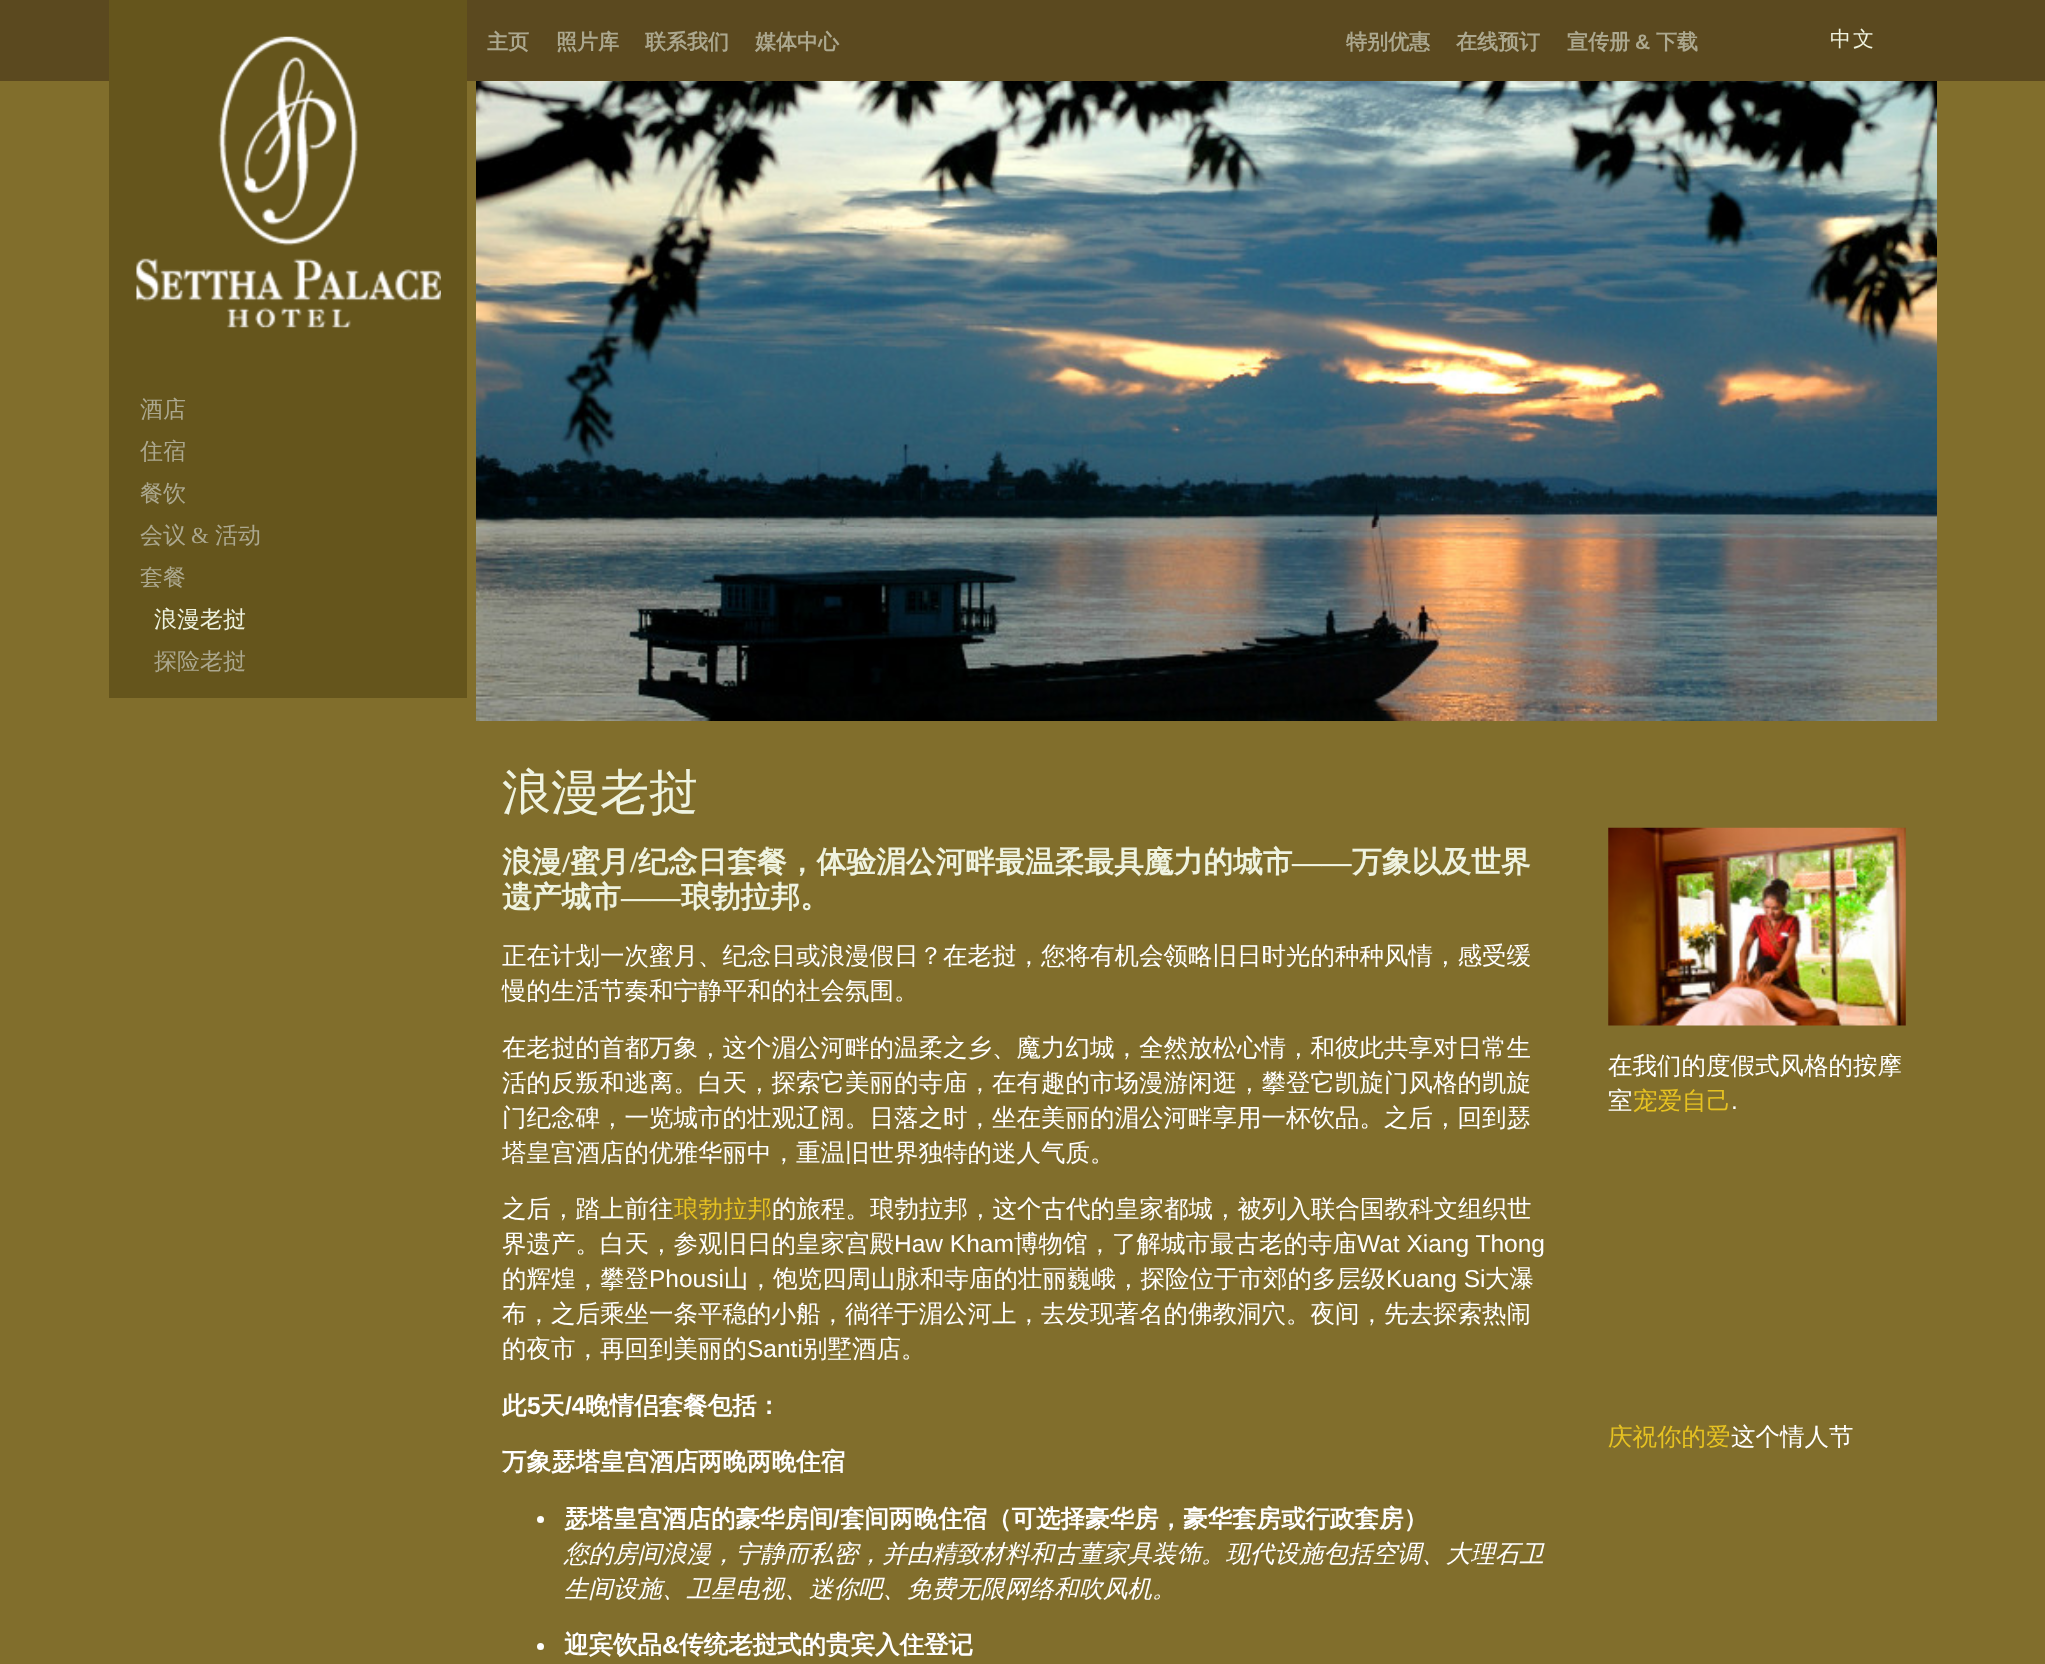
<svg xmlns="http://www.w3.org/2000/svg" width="2045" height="1664">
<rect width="100%" height="100%" fill="#5b491f"/>
<text x="487" y="49" style="font-family:WenQuanYi Zen Hei;font-size:21px;font-weight:bold;fill:#aca88f">主页</text>
<text x="556" y="49" style="font-family:WenQuanYi Zen Hei;font-size:21px;font-weight:bold;fill:#aca88f">照片库</text>
<text x="645" y="49" style="font-family:WenQuanYi Zen Hei;font-size:21px;font-weight:bold;fill:#aca88f">联系我们</text>
<text x="755" y="49" style="font-family:WenQuanYi Zen Hei;font-size:21px;font-weight:bold;fill:#aca88f">媒体中心</text>
<text x="1346" y="49" style="font-family:WenQuanYi Zen Hei;font-size:21px;font-weight:bold;fill:#aca88f">特别优惠</text>
<text x="1456" y="49" style="font-family:WenQuanYi Zen Hei;font-size:21px;font-weight:bold;fill:#aca88f">在线预订</text>
<text x="1567" y="49" style="font-family:WenQuanYi Zen Hei;font-size:21px;font-weight:bold;fill:#aca88f">宣传册</text>
<text x="1635" y="49" style="font-family:Liberation Sans;font-size:21px;font-weight:bold;fill:#aca88f">&amp;</text>
<text x="1656" y="49" style="font-family:WenQuanYi Zen Hei;font-size:21px;font-weight:bold;fill:#aca88f">下载</text>
<text x="1830" y="46" style="font-family:WenQuanYi Zen Hei;font-size:21px;font-weight:500;letter-spacing:2px;fill:#eff3e0">中文</text>
<rect y="81" width="2045" height="1583" fill="#816e2c"/>
<rect x="109" width="358" height="698" fill="#65551c"/>
<image x="136" y="36" width="305" height="292" href="media/1.png"/>
<image x="476" y="81" width="1461" height="640" href="media/2.png"/>
<text x="140" y="417" style="font-family:WenQuanYi Zen Hei;font-size:23px;font-weight:500;fill:#aca88f">酒店</text>
<text x="140" y="459" style="font-family:WenQuanYi Zen Hei;font-size:23px;font-weight:500;fill:#aca88f">住宿</text>
<text x="140" y="501" style="font-family:WenQuanYi Zen Hei;font-size:23px;font-weight:500;fill:#aca88f">餐饮</text>
<text x="140" y="543" style="font-family:WenQuanYi Zen Hei;font-size:23px;font-weight:500;fill:#aca88f">会议</text>
<text x="191" y="543" style="font-family:Liberation Serif;font-size:23px;fill:#aca88f">&amp;</text>
<text x="215" y="543" style="font-family:WenQuanYi Zen Hei;font-size:23px;font-weight:500;fill:#aca88f">活动</text>
<text x="140" y="585" style="font-family:WenQuanYi Zen Hei;font-size:23px;font-weight:500;fill:#aca88f">套餐</text>
<text x="154" y="627" style="font-family:WenQuanYi Zen Hei;font-size:23px;font-weight:500;fill:#eff3e0">浪漫老挝</text>
<text x="154" y="669" style="font-family:WenQuanYi Zen Hei;font-size:23px;font-weight:500;fill:#aca88f">探险老挝</text>
<text x="502" y="809" style="font-family:WenQuanYi Zen Hei;font-size:49px;font-weight:500;fill:#eff3e0">浪漫老挝</text>
<text x="502" y="872" style="font-family:WenQuanYi Zen Hei;font-size:29.75px;font-weight:bold;fill:#eff3e0">浪漫</text>
<text x="562" y="872" style="font-family:Liberation Serif;font-size:29.75px;font-weight:bold;fill:#eff3e0">/</text>
<text x="570" y="872" style="font-family:WenQuanYi Zen Hei;font-size:29.75px;font-weight:bold;fill:#eff3e0">蜜月</text>
<text x="630" y="872" style="font-family:Liberation Serif;font-size:29.75px;font-weight:bold;fill:#eff3e0">/</text>
<text x="638" y="872" style="font-family:WenQuanYi Zen Hei;font-size:29.75px;font-weight:bold;fill:#eff3e0">纪念日套餐，体验湄公河畔最温柔最具魔力的城市</text>
<text x="1292" y="872" style="font-family:Liberation Serif;font-size:29.75px;font-weight:bold;fill:#eff3e0">——</text>
<text x="1352" y="872" style="font-family:WenQuanYi Zen Hei;font-size:29.75px;font-weight:bold;fill:#eff3e0">万象以及世界</text>
<text x="502" y="907" style="font-family:WenQuanYi Zen Hei;font-size:29.75px;font-weight:bold;fill:#eff3e0">遗产城市</text>
<text x="621" y="907" style="font-family:Liberation Serif;font-size:29.75px;font-weight:bold;fill:#eff3e0">——</text>
<text x="681" y="907" style="font-family:WenQuanYi Zen Hei;font-size:29.75px;font-weight:bold;fill:#eff3e0">琅勃拉邦。</text>
<text x="502" y="964" style="font-family:WenQuanYi Zen Hei;font-size:24.5px;font-weight:500;fill:#fff">正在计划一次蜜月、纪念日或浪漫假日？在老挝，您将有机会领略旧日时光的种种风情，感受缓</text>
<text x="502" y="999" style="font-family:WenQuanYi Zen Hei;font-size:24.5px;font-weight:500;fill:#fff">慢的生活节奏和宁静平和的社会氛围。</text>
<text x="502" y="1056" style="font-family:WenQuanYi Zen Hei;font-size:24.5px;font-weight:500;fill:#fff">在老挝的首都万象，这个湄公河畔的温柔之乡、魔力幻城，全然放松心情，和彼此共享对日常生</text>
<text x="502" y="1091" style="font-family:WenQuanYi Zen Hei;font-size:24.5px;font-weight:500;fill:#fff">活的反叛和逃离。白天，探索它美丽的寺庙，在有趣的市场漫游闲逛，攀登它凯旋门风格的凯旋</text>
<text x="502" y="1126" style="font-family:WenQuanYi Zen Hei;font-size:24.5px;font-weight:500;fill:#fff">门纪念碑，一览城市的壮观辽阔。日落之时，坐在美丽的湄公河畔享用一杯饮品。之后，回到瑟</text>
<text x="502" y="1161" style="font-family:WenQuanYi Zen Hei;font-size:24.5px;font-weight:500;fill:#fff">塔皇宫酒店的优雅华丽中，重温旧世界独特的迷人气质。</text>
<text x="502" y="1217" style="font-family:WenQuanYi Zen Hei;font-size:24.5px;font-weight:500;fill:#fff">之后，踏上前往</text>
<text x="674" y="1217" style="font-family:WenQuanYi Zen Hei;font-size:24.5px;font-weight:500;fill:#e6c222">琅勃拉邦</text>
<text x="772" y="1217" style="font-family:WenQuanYi Zen Hei;font-size:24.5px;font-weight:500;fill:#fff">的旅程。琅勃拉邦，这个古代的皇家都城，被列入联合国教科文组织世</text>
<text x="502" y="1252" style="font-family:WenQuanYi Zen Hei;font-size:24.5px;font-weight:500;fill:#fff">界遗产。白天，参观旧日的皇家宫殿</text>
<text x="894" y="1252" style="font-family:Liberation Sans;font-size:24.5px;fill:#fff">Haw Kham</text>
<text x="1014" y="1252" style="font-family:WenQuanYi Zen Hei;font-size:24.5px;font-weight:500;fill:#fff">博物馆，了解城市最古老的寺庙</text>
<text x="1357" y="1252" style="font-family:Liberation Sans;font-size:24.5px;fill:#fff">Wat Xiang Thong</text>
<text x="502" y="1287" style="font-family:WenQuanYi Zen Hei;font-size:24.5px;font-weight:500;fill:#fff">的辉煌，攀登</text>
<text x="649" y="1287" style="font-family:Liberation Sans;font-size:24.5px;fill:#fff">Phousi</text>
<text x="724" y="1287" style="font-family:WenQuanYi Zen Hei;font-size:24.5px;font-weight:500;fill:#fff">山，饱览四周山脉和寺庙的壮丽巍峨，探险位于市郊的多层级</text>
<text x="1386" y="1287" style="font-family:Liberation Sans;font-size:24.5px;fill:#fff">Kuang Si</text>
<text x="1485" y="1287" style="font-family:WenQuanYi Zen Hei;font-size:24.5px;font-weight:500;fill:#fff">大瀑</text>
<text x="502" y="1322" style="font-family:WenQuanYi Zen Hei;font-size:24.5px;font-weight:500;fill:#fff">布，之后乘坐一条平稳的小船，徜徉于湄公河上，去发现著名的佛教洞穴。夜间，先去探索热闹</text>
<text x="502" y="1357" style="font-family:WenQuanYi Zen Hei;font-size:24.5px;font-weight:500;fill:#fff">的夜市，再回到美丽的</text>
<text x="747" y="1357" style="font-family:Liberation Sans;font-size:24.5px;fill:#fff">Santi</text>
<text x="803" y="1357" style="font-family:WenQuanYi Zen Hei;font-size:24.5px;font-weight:500;fill:#fff">别墅酒店。</text>
<text x="502" y="1414" style="font-family:WenQuanYi Zen Hei;font-size:24.5px;font-weight:bold;fill:#fff">此</text>
<text x="527" y="1414" style="font-family:Liberation Sans;font-size:24.5px;font-weight:bold;fill:#fff">5</text>
<text x="540" y="1414" style="font-family:WenQuanYi Zen Hei;font-size:24.5px;font-weight:bold;fill:#fff">天</text>
<text x="565" y="1414" style="font-family:Liberation Sans;font-size:24.5px;font-weight:bold;fill:#fff">/4</text>
<text x="585" y="1414" style="font-family:WenQuanYi Zen Hei;font-size:24.5px;font-weight:bold;fill:#fff">晚情侣套餐包括：</text>
<text x="502" y="1470" style="font-family:WenQuanYi Zen Hei;font-size:24.5px;font-weight:bold;fill:#fff">万象瑟塔皇宫酒店两晚两晚住宿</text>
<circle cx="540.5" cy="1519.5" r="3.5" fill="#fff"/>
<text x="564" y="1527" style="font-family:WenQuanYi Zen Hei;font-size:24.5px;font-weight:bold;fill:#fff">瑟塔皇宫酒店的豪华房间</text>
<text x="833" y="1527" style="font-family:Liberation Sans;font-size:24.5px;font-weight:bold;fill:#fff">/</text>
<text x="840" y="1527" style="font-family:WenQuanYi Zen Hei;font-size:24.5px;font-weight:bold;fill:#fff">套间两晚住宿（可选择豪华房，豪华套房或行政套房）</text>
<text x="564" y="1562" style="font-family:WenQuanYi Zen Hei;font-size:24.5px;font-weight:500;font-style:italic;fill:#fff">您的房间浪漫，宁静而私密，并由精致材料和古董家具装饰。现代设施包括空调、大理石卫</text>
<text x="564" y="1597" style="font-family:WenQuanYi Zen Hei;font-size:24.5px;font-weight:500;font-style:italic;fill:#fff">生间设施、卫星电视、迷你吧、免费无限网络和吹风机。</text>
<circle cx="540.5" cy="1646.5" r="3.5" fill="#fff"/>
<text x="564" y="1653" style="font-family:WenQuanYi Zen Hei;font-size:24.5px;font-weight:bold;fill:#fff">迎宾饮品</text>
<text x="662" y="1653" style="font-family:Liberation Sans;font-size:24.5px;font-weight:bold;fill:#fff">&amp;</text>
<text x="679" y="1653" style="font-family:WenQuanYi Zen Hei;font-size:24.5px;font-weight:bold;fill:#fff">传统老挝式的贵宾入住登记</text>
<image x="1608" y="827" width="298" height="199" href="media/3.png"/>
<text x="1608" y="1074" style="font-family:WenQuanYi Zen Hei;font-size:24.5px;font-weight:500;fill:#fff">在我们的度假式风格的按摩</text>
<text x="1608" y="1109" style="font-family:WenQuanYi Zen Hei;font-size:24.5px;font-weight:500;fill:#fff">室</text>
<text x="1633" y="1109" style="font-family:WenQuanYi Zen Hei;font-size:24.5px;font-weight:500;fill:#e6c222">宠爱自己</text>
<text x="1731" y="1109" style="font-family:Liberation Sans;font-size:24.5px;fill:#fff">.</text>
<text x="1608" y="1445" style="font-family:WenQuanYi Zen Hei;font-size:24.5px;font-weight:500;fill:#e6c222">庆祝你的爱</text>
<text x="1731" y="1445" style="font-family:WenQuanYi Zen Hei;font-size:24.5px;font-weight:500;fill:#fff">这个情人节</text>
</svg>
